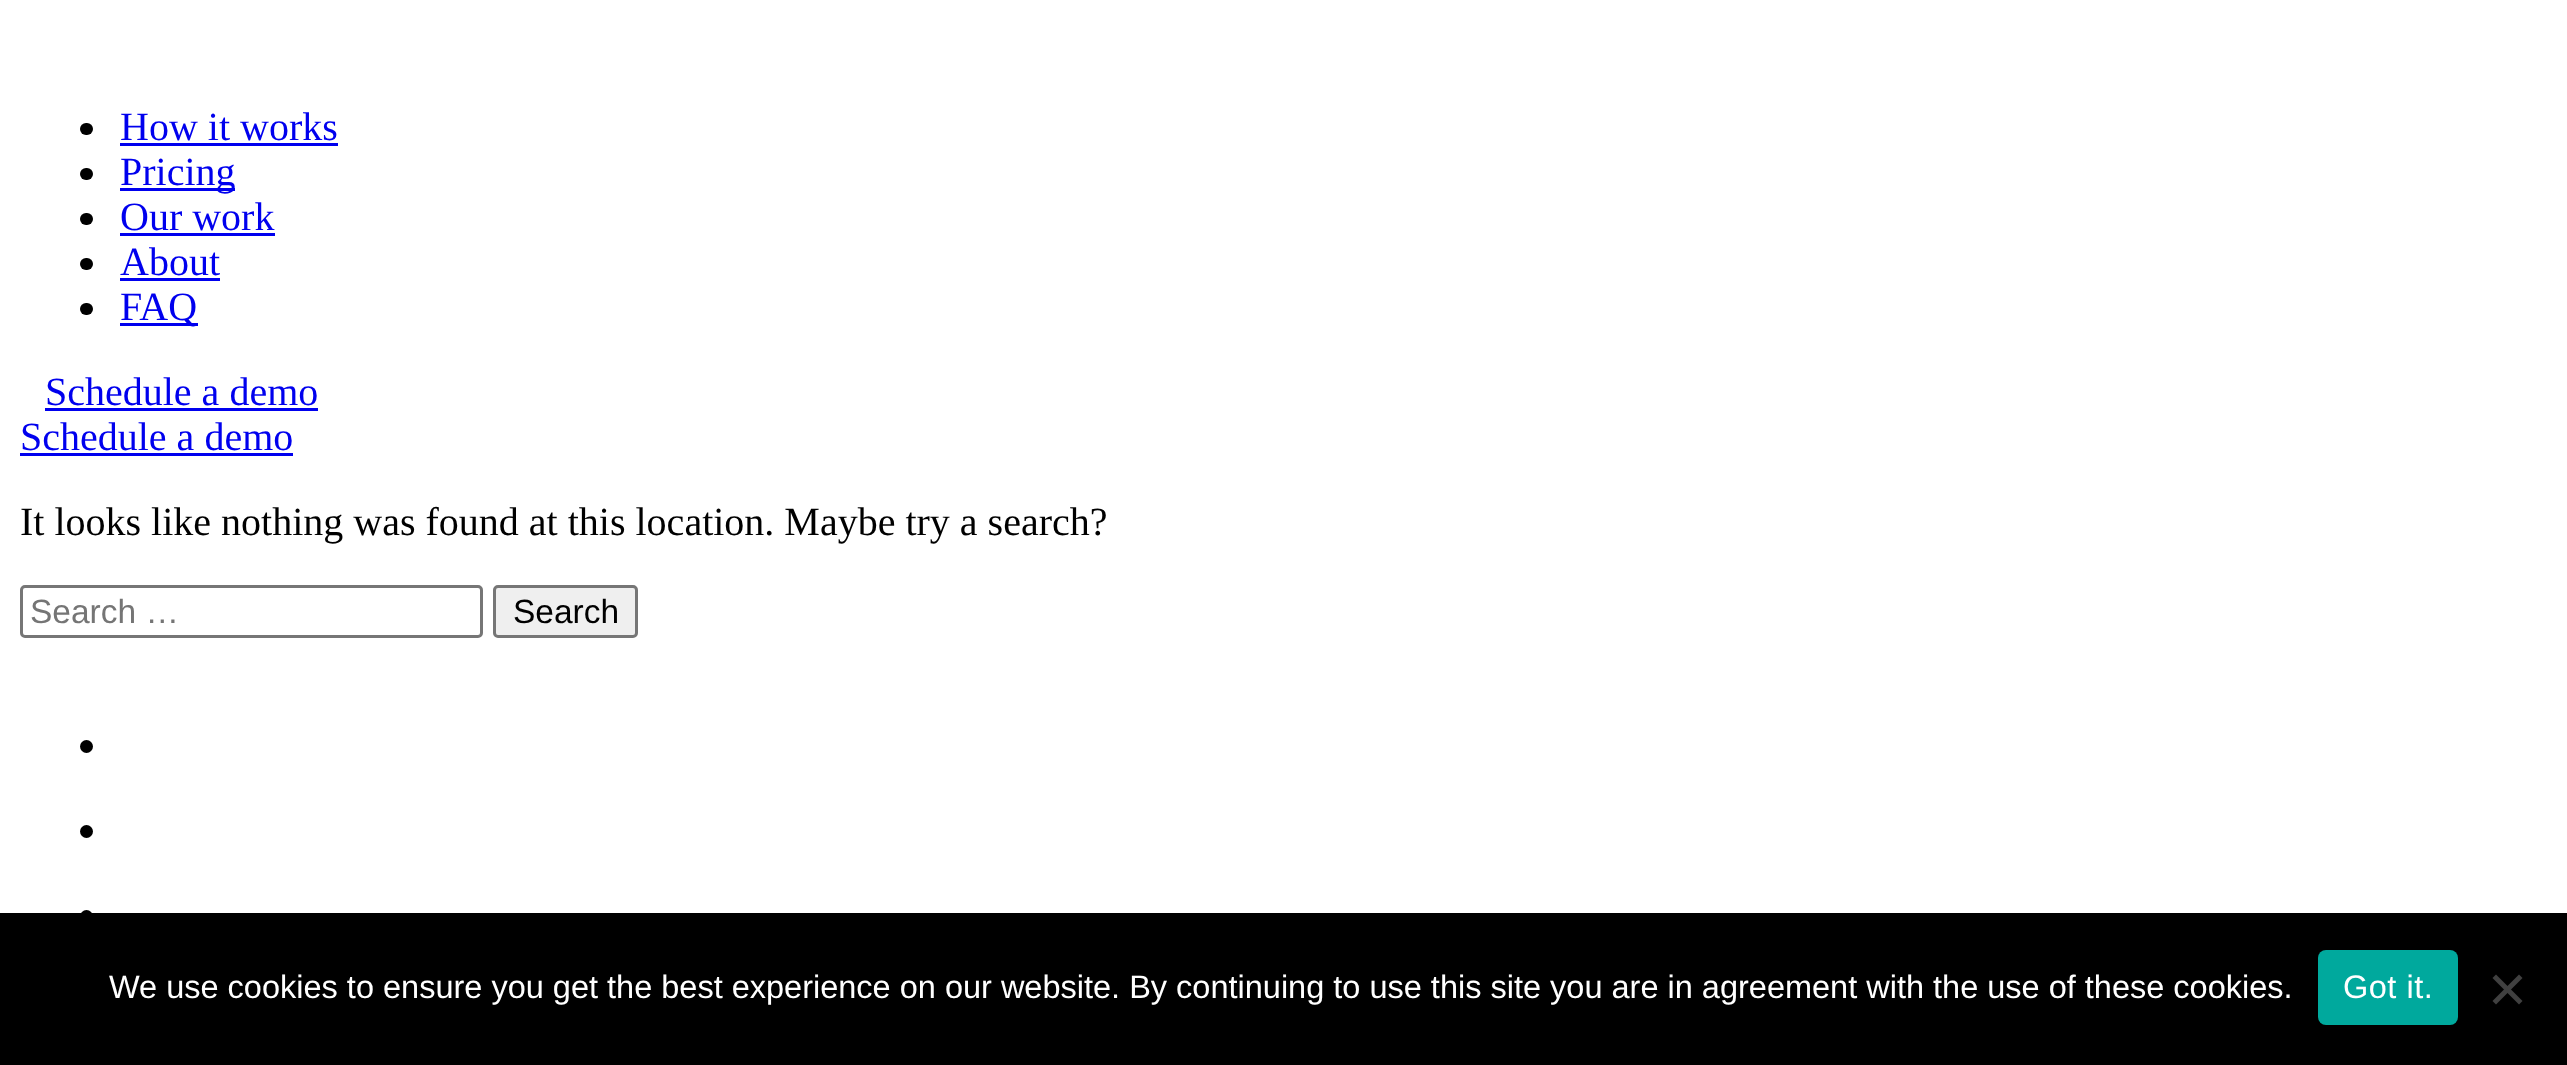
<svg xmlns="http://www.w3.org/2000/svg" width="2567" height="1065">
<rect width="100%" height="100%" fill="#fff"/>
<rect x="80" y="123" width="13" height="12" rx="6" fill="#000"/>
<text x="120" y="140" style="font-family:Liberation Serif;font-size:40px;fill:#00e">How it works</text>
<rect x="120" y="143" width="218" height="3" fill="#00e"/>
<rect x="80" y="168" width="13" height="12" rx="6" fill="#000"/>
<rect x="120" y="188" width="115" height="3" fill="#00e"/>
<text x="120" y="185" style="font-family:Liberation Serif;font-size:40px;fill:#00e">Pricing</text>
<rect x="80" y="213" width="13" height="12" rx="6" fill="#000"/>
<text x="120" y="230" style="font-family:Liberation Serif;font-size:40px;fill:#00e">Our work</text>
<rect x="120" y="233" width="155" height="3" fill="#00e"/>
<rect x="80" y="258" width="13" height="12" rx="6" fill="#000"/>
<text x="120" y="275" style="font-family:Liberation Serif;font-size:40px;fill:#00e">About</text>
<rect x="120" y="278" width="100" height="3" fill="#00e"/>
<rect x="80" y="303" width="13" height="12" rx="6" fill="#000"/>
<rect x="120" y="323" width="78" height="3" fill="#00e"/>
<text x="120" y="320" style="font-family:Liberation Serif;font-size:40px;fill:#00e">FAQ</text>
<text x="45" y="405" style="font-family:Liberation Serif;font-size:40px;fill:#00e">Schedule a demo</text>
<rect x="45" y="408" width="273" height="3" fill="#00e"/>
<text x="20" y="450" style="font-family:Liberation Serif;font-size:40px;fill:#00e">Schedule a demo</text>
<rect x="20" y="453" width="273" height="3" fill="#00e"/>
<text x="20" y="535" style="font-family:Liberation Serif;font-size:40px;fill:#000">It looks like nothing was found at this location. Maybe try a search?</text>
<rect x="21.5" y="586.5" width="460" height="50" rx="3.5" fill="none" stroke="#767676" stroke-width="3"/>
<text x="30" y="623" style="font-family:Liberation Sans;font-size:33.5px;fill:#757575">Search …</text>
<rect x="494.5" y="586.5" width="142" height="50" rx="3.5" fill="#efefef" stroke="#767676" stroke-width="3"/>
<text x="513" y="623" style="font-family:Liberation Sans;font-size:33.5px;fill:#000">Search</text>
<circle cx="86.5" cy="746.5" r="6.5" fill="#000"/>
<circle cx="86.5" cy="831.5" r="6.5" fill="#000"/>
<circle cx="86.5" cy="916.5" r="6.5" fill="#000"/>
<rect y="913" width="2567" height="152" fill="#000"/>
<text x="109" y="998" style="font-family:Liberation Sans;font-size:32.5px;fill:#fff">We use cookies to ensure you get the best experience on our website. By continuing to use this site you are in agreement with the use of these cookies.</text>
<rect x="2318" y="950" width="140" height="75" rx="8" fill="#00a99d"/>
<text x="2343" y="998" style="font-family:Liberation Sans;font-size:32.5px;letter-spacing:0.5px;fill:#fff">Got it.</text>
<path d="M2519 974.5l3.5 3.5l-26.5 26.5l-3.5-3.5z" fill="#404040"/>
<path d="M2492.5 978l3.5-3.5l26.5 26.5l-3.5 3.5z" fill="#404040"/>
</svg>
